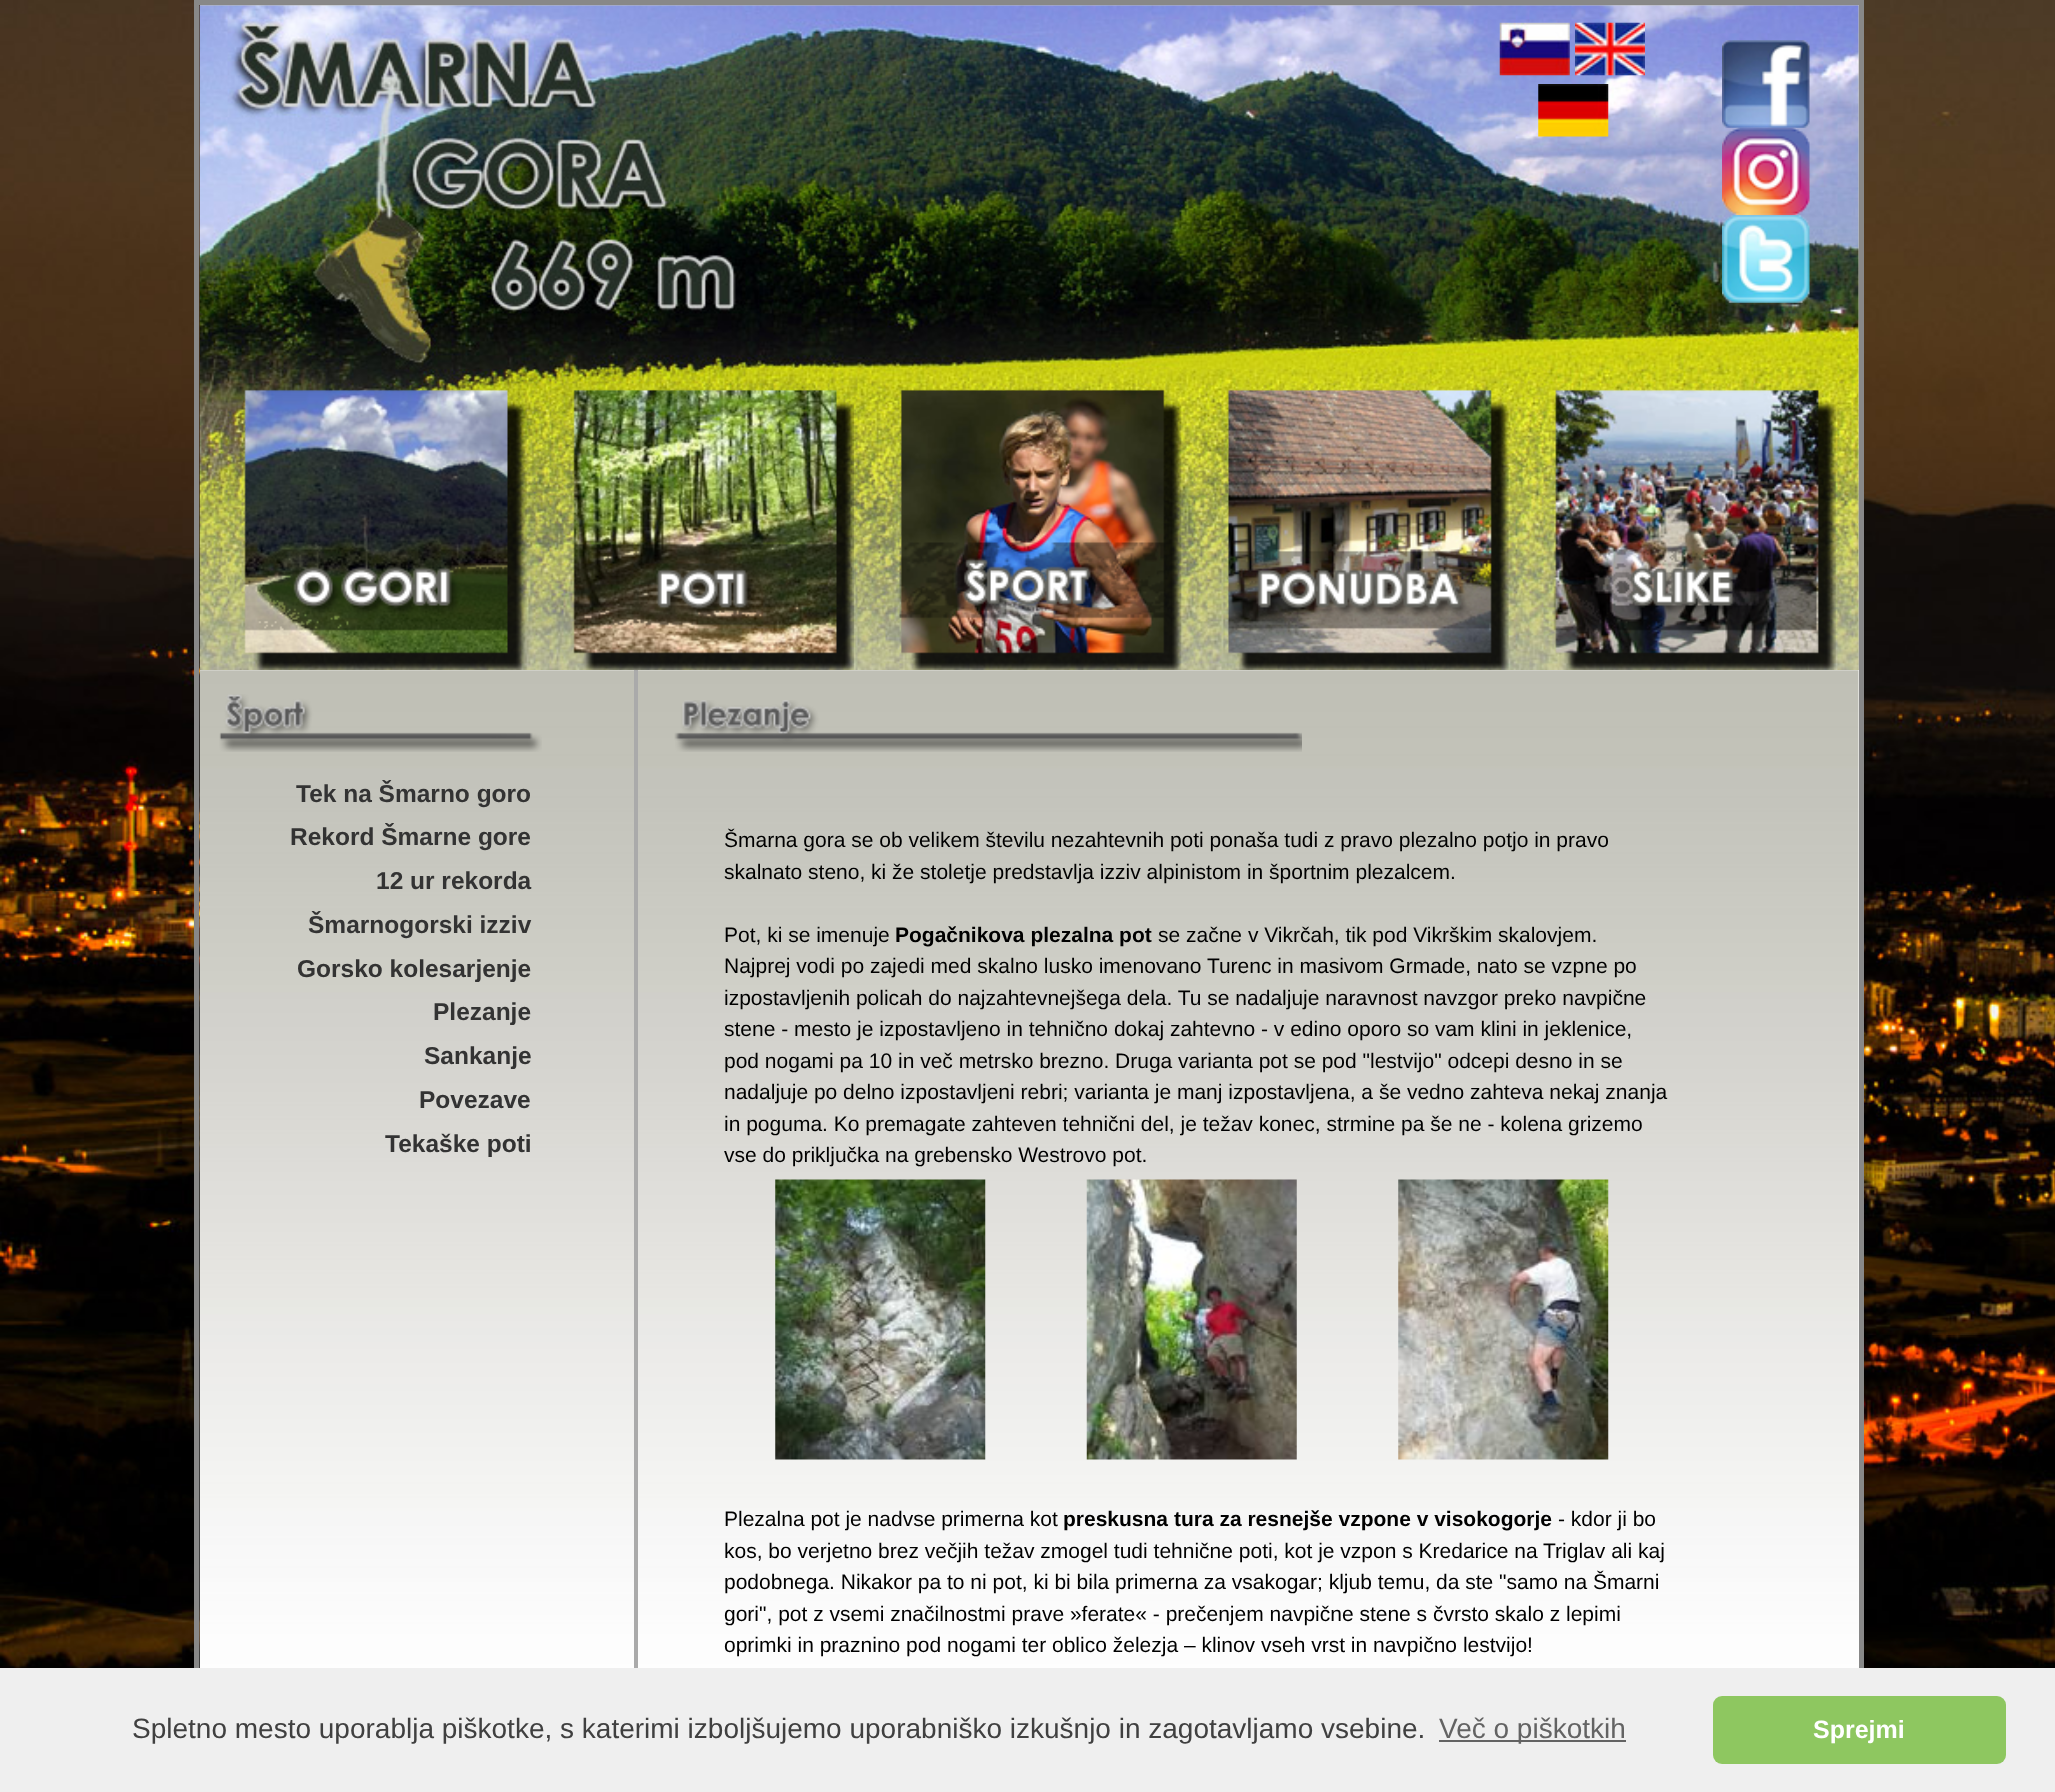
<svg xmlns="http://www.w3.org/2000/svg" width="2055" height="1792">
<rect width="100%" height="100%" fill="#fff"/>
<image x="0" y="0" width="2055" height="1668" href="media/1.png"/>
<rect x="196.5" y="2.5" width="1665" height="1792" fill="none" stroke="#888" stroke-width="5"/>
<rect x="200" y="5" width="1659" height="665" fill="#bfbfb5"/>
<image x="199" y="5" width="1660" height="666" href="media/2.png"/>
<image x="1499" y="22" width="71" height="54" href="media/3.png"/>
<image x="1575" y="22" width="70" height="54" href="media/4.png"/>
<image x="1538" y="84" width="71" height="53" href="media/5.png"/>
<image x="1722" y="40" width="88" height="88" href="media/6.png"/>
<image x="1722" y="127" width="88" height="89" href="media/7.png"/>
<image x="1722" y="215" width="88" height="88" href="media/8.png"/>
<image x="244" y="389" width="283" height="281" href="media/9.png"/>
<image x="573" y="389" width="281" height="281" href="media/10.png"/>
<image x="899" y="389" width="283" height="281" href="media/11.png"/>
<image x="1228" y="389" width="281" height="281" href="media/12.png"/>
<image x="1553" y="389" width="283" height="281" href="media/13.png"/>
<rect x="200" y="670" width="1659" height="998" fill="#fff"/>
<image x="199" y="670" width="1660" height="998" href="media/14.png"/>
<rect x="634" y="670" width="4" height="998" fill="#aaa"/>
<image x="219" y="694" width="323" height="58" href="media/15.png"/>
<text x="296" y="802" style="font-family:Liberation Sans;font-size:24.5px;font-weight:bold;fill:#333">Tek na Šmarno goro</text>
<text x="290" y="845" style="font-family:Liberation Sans;font-size:24.5px;font-weight:bold;fill:#333">Rekord Šmarne gore</text>
<text x="376" y="889" style="font-family:Liberation Sans;font-size:24.5px;font-weight:bold;fill:#333">12 ur rekorda</text>
<text x="308" y="933" style="font-family:Liberation Sans;font-size:24.5px;font-weight:bold;fill:#333">Šmarnogorski izziv</text>
<text x="297" y="977" style="font-family:Liberation Sans;font-size:24.5px;font-weight:bold;fill:#333">Gorsko kolesarjenje</text>
<text x="433" y="1020" style="font-family:Liberation Sans;font-size:24.5px;font-weight:bold;fill:#333">Plezanje</text>
<text x="424" y="1064" style="font-family:Liberation Sans;font-size:24.5px;font-weight:bold;fill:#333">Sankanje</text>
<text x="419" y="1108" style="font-family:Liberation Sans;font-size:24.5px;font-weight:bold;fill:#333">Povezave</text>
<text x="385" y="1152" style="font-family:Liberation Sans;font-size:24.5px;font-weight:bold;fill:#333">Tekaške poti</text>
<image x="674" y="700" width="628" height="52" href="media/16.png"/>
<text x="724" y="847" style="font-family:Liberation Sans;font-size:21px;fill:#000">Šmarna gora se ob velikem številu nezahtevnih poti ponaša tudi z pravo plezalno potjo in pravo</text>
<text x="724" y="879" style="font-family:Liberation Sans;font-size:21px;fill:#000">skalnato steno, ki že stoletje predstavlja izziv alpinistom in športnim plezalcem.</text>
<text x="724" y="942" style="font-family:Liberation Sans;font-size:21px;fill:#000">Pot, ki se imenuje</text>
<text x="895" y="942" style="font-family:Liberation Sans;font-size:21px;font-weight:bold;fill:#000">Pogačnikova plezalna pot</text>
<text x="1158" y="942" style="font-family:Liberation Sans;font-size:21px;fill:#000">se začne v Vikrčah, tik pod Vikrškim skalovjem.</text>
<text x="724" y="973" style="font-family:Liberation Sans;font-size:21px;fill:#000">Najprej vodi po zajedi med skalno lusko imenovano Turenc in masivom Grmade, nato se vzpne po</text>
<text x="724" y="1005" style="font-family:Liberation Sans;font-size:21px;fill:#000">izpostavljenih policah do najzahtevnejšega dela. Tu se nadaljuje naravnost navzgor preko navpične</text>
<text x="724" y="1036" style="font-family:Liberation Sans;font-size:21px;fill:#000">stene - mesto je izpostavljeno in tehnično dokaj zahtevno - v edino oporo so vam klini in jeklenice,</text>
<text x="724" y="1068" style="font-family:Liberation Sans;font-size:21px;fill:#000">pod nogami pa 10 in več metrsko brezno. Druga varianta pot se pod "lestvijo" odcepi desno in se</text>
<text x="724" y="1099" style="font-family:Liberation Sans;font-size:21px;fill:#000">nadaljuje po delno izpostavljeni rebri; varianta je manj izpostavljena, a še vedno zahteva nekaj znanja</text>
<text x="724" y="1131" style="font-family:Liberation Sans;font-size:21px;fill:#000">in poguma. Ko premagate zahteven tehnični del, je težav konec, strmine pa še ne - kolena grizemo</text>
<text x="724" y="1162" style="font-family:Liberation Sans;font-size:21px;fill:#000">vse do priključka na grebensko Westrovo pot.</text>
<image x="775" y="1179" width="211" height="281" href="media/17.png"/>
<image x="1086" y="1179" width="211" height="281" href="media/18.png"/>
<image x="1398" y="1179" width="211" height="281" href="media/19.png"/>
<text x="724" y="1526" style="font-family:Liberation Sans;font-size:21px;fill:#000">Plezalna pot je nadvse primerna kot</text>
<text x="1063" y="1526" style="font-family:Liberation Sans;font-size:21px;font-weight:bold;fill:#000">preskusna tura za resnejše vzpone v visokogorje</text>
<text x="1558" y="1526" style="font-family:Liberation Sans;font-size:21px;fill:#000">- kdor ji bo</text>
<text x="724" y="1558" style="font-family:Liberation Sans;font-size:21px;fill:#000">kos, bo verjetno brez večjih težav zmogel tudi tehnične poti, kot je vzpon s Kredarice na Triglav ali kaj</text>
<text x="724" y="1589" style="font-family:Liberation Sans;font-size:21px;fill:#000">podobnega. Nikakor pa to ni pot, ki bi bila primerna za vsakogar; kljub temu, da ste "samo na Šmarni</text>
<text x="724" y="1621" style="font-family:Liberation Sans;font-size:21px;fill:#000">gori", pot z vsemi značilnostmi prave »ferate« - prečenjem navpične stene s čvrsto skalo z lepimi</text>
<text x="724" y="1652" style="font-family:Liberation Sans;font-size:21px;fill:#000">oprimki in praznino pod nogami ter oblico železja – klinov vseh vrst in navpično lestvijo!</text>
<rect y="1668" width="2055" height="124" fill="#efefef"/>
<text x="132" y="1738" style="font-family:Liberation Sans;font-size:28px;fill:#404040">Spletno mesto uporablja piškotke, s katerimi izboljšujemo uporabniško izkušnjo in zagotavljamo vsebine.</text>
<rect x="1439" y="1740" width="187" height="2" fill="#636363"/>
<text x="1439" y="1738" style="font-family:Liberation Sans;font-size:28px;fill:#636363">Več o piškotkih</text>
<rect x="1713" y="1696" width="293" height="68" rx="9" fill="#8ec760"/>
<text x="1813" y="1738" style="font-family:Liberation Sans;font-size:25px;font-weight:bold;fill:#fff">Sprejmi</text>
</svg>
